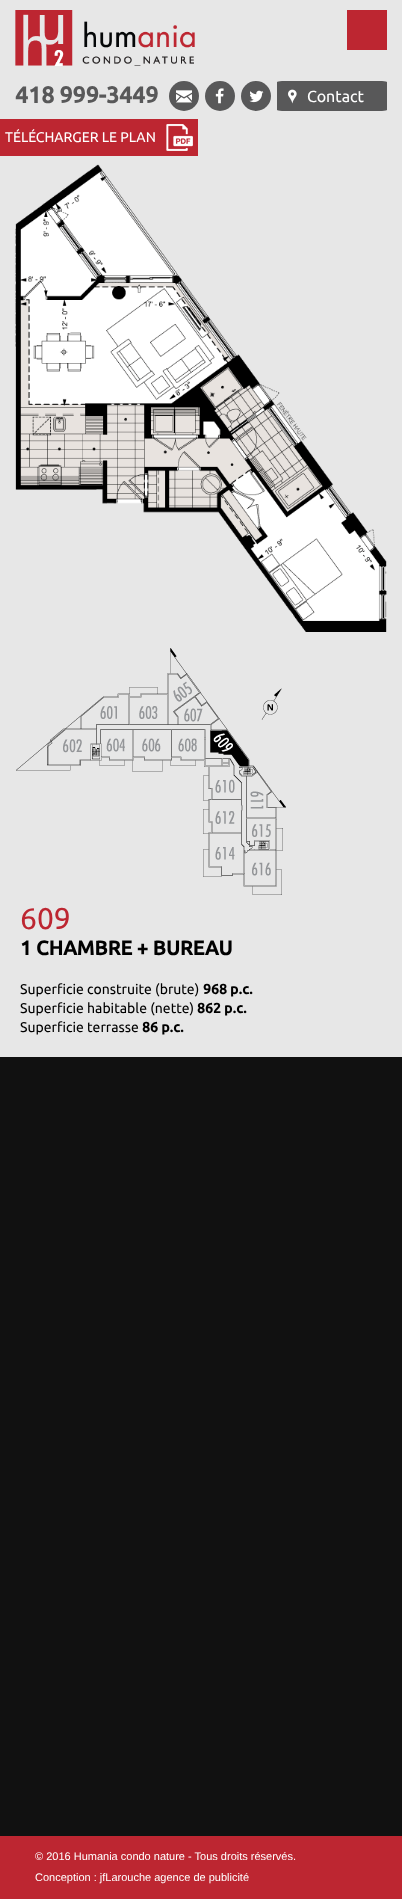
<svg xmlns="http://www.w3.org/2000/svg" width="402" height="1899">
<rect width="100%" height="100%" fill="#111"/>
<rect width="402" height="1057" fill="#e7e7e7"/>
<image x="15" y="10" width="180" height="56" href="media/1.png"/>
<rect x="347" y="10" width="40" height="40" fill="#bd2631"/>
<text x="15" y="103" style="font-family:Ubuntu;font-size:23px;font-weight:bold;fill:#585859">418 999-3449</text>
<circle cx="184" cy="96" r="15" fill="#585859"/>
<image x="176" y="90" width="16" height="13" href="media/2.png"/>
<circle cx="220" cy="96" r="15" fill="#585859"/>
<image x="215" y="88" width="9" height="16" href="media/3.png"/>
<circle cx="256" cy="96" r="15" fill="#585859"/>
<image x="249" y="90" width="15" height="13" href="media/4.png"/>
<path d="M282 81h100c3 0 5 1 5 1v28c0 0-2 1-5 1h-100c-3 0-5-1-5-1v-28c0 0 2-1 5-1z" fill="#585859"/>
<image x="288" y="89" width="9" height="15" href="media/5.png"/>
<text x="307" y="102" style="font-family:Ubuntu;font-size:16px;fill:#fff">Contact</text>
<rect y="119" width="198" height="37" fill="#bd2631"/>
<text x="5" y="142" style="font-family:Ubuntu;font-size:14px;fill:#fff">TÉLÉCHARGER LE PLAN</text>
<image x="166" y="124" width="27" height="27" href="media/6.png"/>
<image x="15" y="164" width="372" height="468" href="media/7.png"/>
<image x="16" y="648" width="270" height="247" href="media/8.png"/>
<text x="20" y="929" style="font-family:Ubuntu;font-size:30px;fill:#bd2631">609</text>
<text x="20" y="955" style="font-family:Ubuntu;font-size:20px;font-weight:bold;fill:#000">1 CHAMBRE + BUREAU</text>
<text x="20" y="994" style="font-family:Ubuntu;font-size:14px;fill:#000">Superficie construite (brute)</text>
<text x="203" y="994" style="font-family:Ubuntu;font-size:14px;font-weight:bold;fill:#000">968 p.c.</text>
<text x="20" y="1013" style="font-family:Ubuntu;font-size:14px;fill:#000">Superficie habitable (nette)</text>
<text x="197" y="1013" style="font-family:Ubuntu;font-size:14px;font-weight:bold;fill:#000">862 p.c.</text>
<text x="20" y="1032" style="font-family:Ubuntu;font-size:14px;fill:#000">Superficie terrasse</text>
<text x="142" y="1032" style="font-family:Ubuntu;font-size:14px;font-weight:bold;fill:#000">86 p.c.</text>
<rect y="1836" width="402" height="63" fill="#bd2631"/>
<text x="35" y="1860" style="font-family:Liberation Sans;font-size:11px;fill:#fff">© 2016 Humania condo nature - Tous droits réservés.</text>
<text x="35" y="1881" style="font-family:Liberation Sans;font-size:11px;fill:#fff">Conception : jfLarouche agence de publicité</text>
</svg>
